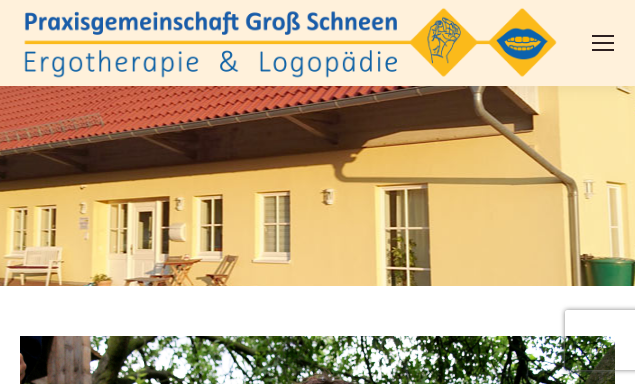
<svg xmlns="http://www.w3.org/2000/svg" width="635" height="384">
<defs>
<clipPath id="clip1"><path d="M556 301h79v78h-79zm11 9h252c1 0 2 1 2 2v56c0 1-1 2-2 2h-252c-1 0-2-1-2-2v-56c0-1 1-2 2-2z" clip-rule="evenodd"/></clipPath>
</defs>
<rect width="100%" height="100%" fill="#fff"/>
<image x="0" y="86" width="635" height="200" href="media/2.png"/>
<rect x="-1" y="-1" width="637" height="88" fill="#00000012" filter="blur(7.5px)"/>
<rect width="635" height="86" fill="#fff1db"/>
<image x="24" y="7" width="533" height="71" href="media/1.png"/>
<rect x="592" y="35" width="22" height="2" fill="#2d2020"/>
<rect x="592" y="42" width="22" height="2" fill="#2d2020"/>
<rect x="592" y="49" width="22" height="2" fill="#2d2020"/>
<image x="20" y="336" width="595" height="48" href="media/3.png"/>
<g clip-path="url(#clip1)">
<rect x="565" y="310" width="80" height="60" rx="2" fill="#808080" filter="blur(2.5px)"/>
</g>
</svg>
